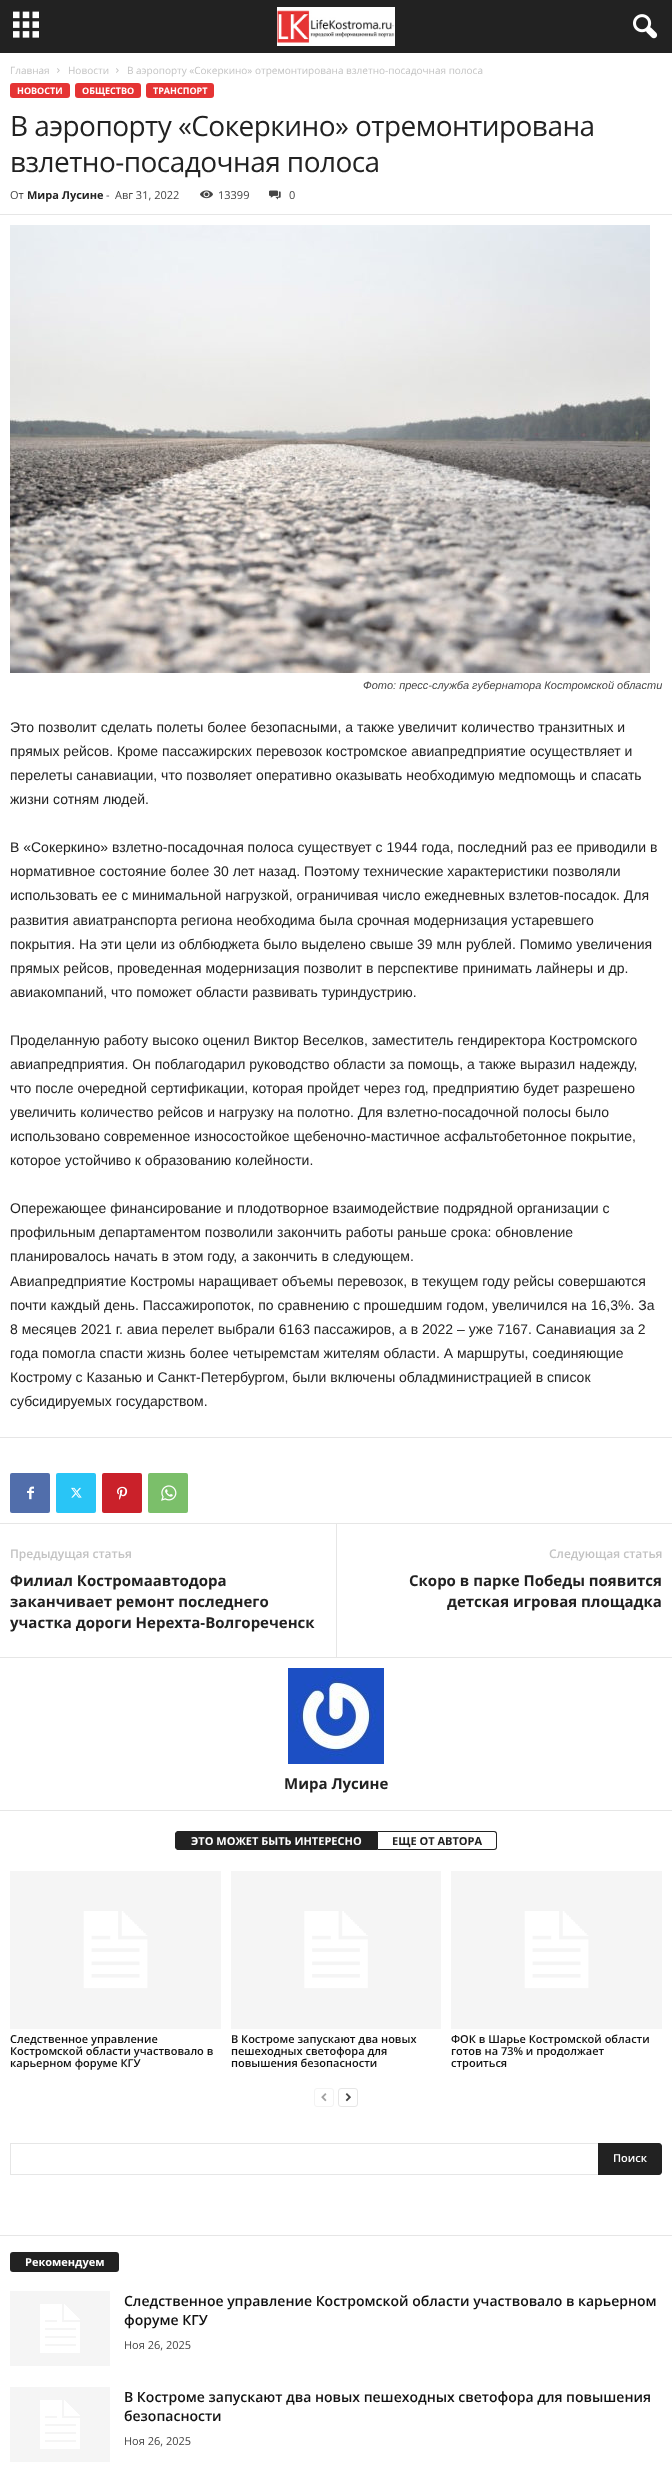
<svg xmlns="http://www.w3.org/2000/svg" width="672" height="2465">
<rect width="100%" height="100%" fill="#fff"/>
<rect width="672" height="53" fill="#222"/>
<image x="13" y="11" width="26" height="27" href="media/1.png"/>
<image x="277" y="7" width="118" height="39" href="media/2.png"/>
<image x="633" y="14" width="25" height="25" href="media/3.png"/>
<text x="10" y="74" style="font-family:Open Sans;font-size:10px;fill:#c3c3c3">Главная</text>
<image x="57" y="68" width="3" height="5" href="media/4.png"/>
<text x="68" y="74" style="font-family:Open Sans;font-size:10px;fill:#c3c3c3">Новости</text>
<image x="116" y="68" width="3" height="5" href="media/4.png"/>
<text x="127" y="74" style="font-family:Open Sans;font-size:10px;fill:#c3c3c3">В аэропорту «Сокеркино» отремонтирована взлетно-посадочная полоса</text>
<rect x="10" y="83" width="60" height="15" rx="3" fill="#e53434"/>
<text x="17" y="94" style="font-family:Open Sans;font-size:9px;font-weight:bold;fill:#fff">НОВОСТИ</text>
<rect x="75" y="83" width="66" height="15" rx="3" fill="#e53434"/>
<text x="82" y="94" style="font-family:Open Sans;font-size:9px;font-weight:bold;fill:#fff">ОБЩЕСТВО</text>
<rect x="146" y="83" width="68" height="15" rx="3" fill="#e53434"/>
<text x="153" y="94" style="font-family:Open Sans;font-size:9px;font-weight:bold;fill:#fff">ТРАНСПОРТ</text>
<text x="10" y="136" style="font-family:Open Sans;font-size:28px;letter-spacing:-0.55px;fill:#222">В аэропорту «Сокеркино» отремонтирована</text>
<text x="10" y="172" style="font-family:Open Sans;font-size:28px;letter-spacing:-0.55px;fill:#222">взлетно-посадочная полоса</text>
<text x="10" y="199" style="font-family:Open Sans;font-size:11px;fill:#444">От</text>
<text x="27" y="199" style="font-family:Open Sans;font-size:11px;font-weight:bold;fill:#222">Мира Лусине</text>
<text x="106" y="199" style="font-family:Open Sans;font-size:11px;fill:#444">-</text>
<text x="115" y="199" style="font-family:Open Sans;font-size:11px;fill:#444">Авг 31, 2022</text>
<image x="200" y="190" width="13" height="9" href="media/5.png"/>
<text x="218" y="199" style="font-family:Open Sans;font-size:11px;fill:#444">13399</text>
<image x="269" y="190" width="12" height="10" href="media/6.png"/>
<text x="289" y="199" style="font-family:Open Sans;font-size:11px;fill:#444">0</text>
<rect y="214" width="672" height="1" fill="#e6e6e6"/>
<image x="10" y="225" width="640" height="448" href="media/7.png"/>
<text x="363" y="689" style="font-family:Liberation Sans;font-size:11px;font-style:italic;fill:#444">Фото: пресс-служба губернатора Костромской области</text>
<text x="10" y="732" style="font-family:Liberation Sans;font-size:14px;fill:#222">Это позволит сделать полеты более безопасными, а также увеличит количество транзитных и</text>
<text x="10" y="756" style="font-family:Liberation Sans;font-size:14px;fill:#222">прямых рейсов. Кроме пассажирских перевозок костромское авиапредприятие осуществляет и</text>
<text x="10" y="780" style="font-family:Liberation Sans;font-size:14px;fill:#222">перелеты санавиации, что позволяет оперативно оказывать необходимую медпомощь и спасать</text>
<text x="10" y="804" style="font-family:Liberation Sans;font-size:14px;fill:#222">жизни сотням людей.</text>
<text x="10" y="852" style="font-family:Liberation Sans;font-size:14px;fill:#222">В «Сокеркино» взлетно-посадочная полоса существует с 1944 года, последний раз ее приводили в</text>
<text x="10" y="876" style="font-family:Liberation Sans;font-size:14px;fill:#222">нормативное состояние более 30 лет назад. Поэтому технические характеристики позволяли</text>
<text x="10" y="900" style="font-family:Liberation Sans;font-size:14px;fill:#222">использовать ее с минимальной нагрузкой, ограничивая число ежедневных взлетов-посадок. Для</text>
<text x="10" y="925" style="font-family:Liberation Sans;font-size:14px;fill:#222">развития авиатранспорта региона необходима была срочная модернизация устаревшего</text>
<text x="10" y="949" style="font-family:Liberation Sans;font-size:14px;fill:#222">покрытия. На эти цели из облбюджета было выделено свыше 39 млн рублей. Помимо увеличения</text>
<text x="10" y="973" style="font-family:Liberation Sans;font-size:14px;fill:#222">прямых рейсов, проведенная модернизация позволит в перспективе принимать лайнеры и др.</text>
<text x="10" y="997" style="font-family:Liberation Sans;font-size:14px;fill:#222">авиакомпаний, что поможет области развивать туриндустрию.</text>
<text x="10" y="1045" style="font-family:Liberation Sans;font-size:14px;fill:#222">Проделанную работу высоко оценил Виктор Веселков, заместитель гендиректора Костромского</text>
<text x="10" y="1069" style="font-family:Liberation Sans;font-size:14px;fill:#222">авиапредприятия. Он поблагодарил руководство области за помощь, а также выразил надежду,</text>
<text x="10" y="1093" style="font-family:Liberation Sans;font-size:14px;fill:#222">что после очередной сертификации, которая пройдет через год, предприятию будет разрешено</text>
<text x="10" y="1117" style="font-family:Liberation Sans;font-size:14px;fill:#222">увеличить количество рейсов и нагрузку на полотно. Для взлетно-посадочной полосы было</text>
<text x="10" y="1141" style="font-family:Liberation Sans;font-size:14px;fill:#222">использовано современное износостойкое щебеночно-мастичное асфальтобетонное покрытие,</text>
<text x="10" y="1165" style="font-family:Liberation Sans;font-size:14px;fill:#222">которое устойчиво к образованию колейности.</text>
<text x="10" y="1213" style="font-family:Liberation Sans;font-size:14px;fill:#222">Опережающее финансирование и плодотворное взаимодействие подрядной организации с</text>
<text x="10" y="1237" style="font-family:Liberation Sans;font-size:14px;fill:#222">профильным департаментом позволили закончить работы раньше срока: обновление</text>
<text x="10" y="1261" style="font-family:Liberation Sans;font-size:14px;fill:#222">планировалось начать в этом году, а закончить в следующем.</text>
<text x="10" y="1286" style="font-family:Liberation Sans;font-size:14px;fill:#222">Авиапредприятие Костромы наращивает объемы перевозок, в текущем году рейсы совершаются</text>
<text x="10" y="1310" style="font-family:Liberation Sans;font-size:14px;fill:#222">почти каждый день. Пассажиропоток, по сравнению с прошедшим годом, увеличился на 16,3%. За</text>
<text x="10" y="1334" style="font-family:Liberation Sans;font-size:14px;fill:#222">8 месяцев 2021 г. авиа перелет выбрали 6163 пассажиров, а в 2022 – уже 7167. Санавиация за 2</text>
<text x="10" y="1358" style="font-family:Liberation Sans;font-size:14px;fill:#222">года помогла спасти жизнь более четыремстам жителям области. А маршруты, соединяющие</text>
<text x="10" y="1382" style="font-family:Liberation Sans;font-size:14px;fill:#222">Кострому с Казанью и Санкт-Петербургом, были включены обладминистрацией в список</text>
<text x="10" y="1406" style="font-family:Liberation Sans;font-size:14px;fill:#222">субсидируемых государством.</text>
<rect y="1437" width="672" height="1" fill="#e6e6e6"/>
<rect x="10" y="1473" width="40" height="40" rx="2" fill="#516eab"/>
<image x="27" y="1486" width="7" height="14" href="media/8.png"/>
<rect x="56" y="1473" width="40" height="40" rx="2" fill="#29c5f6"/>
<image x="71" y="1487" width="11" height="11" href="media/9.png"/>
<rect x="102" y="1473" width="40" height="40" rx="2" fill="#ca212a"/>
<image x="117" y="1486" width="11" height="14" href="media/10.png"/>
<rect x="148" y="1473" width="40" height="40" rx="2" fill="#7bbf6a"/>
<image x="161" y="1485" width="16" height="16" href="media/11.png"/>
<rect y="1523" width="672" height="1" fill="#e6e6e6"/>
<text x="10" y="1558" style="font-family:Open Sans;font-size:12px;font-weight:600;fill:#c3c3c3">Предыдущая статья</text>
<text x="10" y="1586" style="font-family:Open Sans;font-size:15px;font-weight:bold;fill:#222">Филиал Костромаавтодора</text>
<text x="10" y="1607" style="font-family:Open Sans;font-size:15px;font-weight:bold;fill:#222">заканчивает ремонт последнего</text>
<text x="10" y="1628" style="font-family:Open Sans;font-size:15px;font-weight:bold;fill:#222">участка дороги Нерехта-Волгореченск</text>
<rect x="336" y="1524" width="1" height="133" fill="#e6e6e6"/>
<text x="549" y="1558" style="font-family:Open Sans;font-size:12px;font-weight:600;fill:#c3c3c3">Следующая статья</text>
<text x="409" y="1586" style="font-family:Open Sans;font-size:15px;font-weight:bold;fill:#222">Скоро в парке Победы появится</text>
<text x="447" y="1607" style="font-family:Open Sans;font-size:15px;font-weight:bold;fill:#222">детская игровая площадка</text>
<rect y="1657" width="672" height="1" fill="#e6e6e6"/>
<image x="288" y="1668" width="96" height="96" href="media/12.png"/>
<text x="284" y="1789" style="font-family:Open Sans;font-size:15px;font-weight:bold;fill:#222">Мира Лусине</text>
<rect y="1810" width="672" height="1" fill="#e6e6e6"/>
<path d="M178 1831.5h199.5v18h-199.5c-1.5 0-2.5-1-2.5-2.5v-13c0-1.5 1-2.5 2.5-2.5z" fill="#222" stroke="#222"/>
<text x="191" y="1845" style="font-family:Open Sans;font-size:11px;font-weight:bold;fill:#fff">ЭТО МОЖЕТ БЫТЬ ИНТЕРЕСНО</text>
<path d="M378 1831h116c2 0 3 1 3 3v13c0 2-1 3-3 3h-116zm0 1h116c1 0 2 1 2 2v13c0 1-1 2-2 2h-116z" fill="#222" fill-rule="evenodd"/>
<text x="392" y="1845" style="font-family:Open Sans;font-size:11px;font-weight:bold;fill:#222">ЕЩЕ ОТ АВТОРА</text>
<image x="10" y="1871" width="211" height="158" href="media/13.png"/>
<text x="10" y="2043" style="font-family:Open Sans;font-size:11px;font-weight:600;fill:#111">Следственное управление</text>
<text x="10" y="2055" style="font-family:Open Sans;font-size:11px;font-weight:600;fill:#111">Костромской области участвовало в</text>
<text x="10" y="2067" style="font-family:Open Sans;font-size:11px;font-weight:600;fill:#111">карьерном форуме КГУ</text>
<image x="231" y="1871" width="210" height="158" href="media/14.png"/>
<text x="231" y="2043" style="font-family:Open Sans;font-size:11px;font-weight:600;fill:#111">В Костроме запускают два новых</text>
<text x="231" y="2055" style="font-family:Open Sans;font-size:11px;font-weight:600;fill:#111">пешеходных светофора для</text>
<text x="231" y="2067" style="font-family:Open Sans;font-size:11px;font-weight:600;fill:#111">повышения безопасности</text>
<image x="451" y="1871" width="211" height="158" href="media/13.png"/>
<text x="451" y="2043" style="font-family:Open Sans;font-size:11px;font-weight:600;fill:#111">ФОК в Шарье Костромской области</text>
<text x="451" y="2055" style="font-family:Open Sans;font-size:11px;font-weight:600;fill:#111">готов на 73% и продолжает</text>
<text x="451" y="2067" style="font-family:Open Sans;font-size:11px;font-weight:600;fill:#111">строиться</text>
<rect x="314.5" y="2088.5" width="19" height="18" rx="2.5" fill="none" stroke="#f3f3f3"/>
<image x="321" y="2093" width="6" height="9" href="media/15.png"/>
<rect x="338.5" y="2088.5" width="19" height="18" rx="2.5" fill="none" stroke="#e6e6e6"/>
<image x="345" y="2093" width="6" height="9" href="media/16.png"/>
<rect x="10" y="2143" width="588" height="1" fill="#e6e6e6"/>
<rect x="10" y="2174" width="588" height="1" fill="#e6e6e6"/>
<rect x="10" y="2143" width="1" height="32" fill="#e6e6e6"/>
<path d="M598 2143h61c1.5 0 3 1.5 3 3v26c0 1.5-1.5 3-3 3h-61z" fill="#222"/>
<text x="613" y="2162" style="font-family:Open Sans;font-size:11px;font-weight:600;fill:#fff">Поиск</text>
<rect y="2235" width="672" height="1" fill="#e6e6e6"/>
<rect x="10" y="2252" width="109" height="20" rx="3" fill="#222"/>
<text x="25" y="2266" style="font-family:Open Sans;font-size:11px;font-weight:bold;fill:#fff">Рекомендуем</text>
<image x="10" y="2291" width="100" height="75" href="media/17.png"/>
<text x="124" y="2306" style="font-family:Open Sans;font-size:14px;font-weight:600;fill:#111">Следственное управление Костромской области участвовало в карьерном</text>
<text x="124" y="2325" style="font-family:Open Sans;font-size:14px;font-weight:600;fill:#111">форуме КГУ</text>
<text x="124" y="2349" style="font-family:Open Sans;font-size:11px;fill:#444">Ноя 26, 2025</text>
<image x="10" y="2387" width="100" height="75" href="media/17.png"/>
<text x="124" y="2402" style="font-family:Open Sans;font-size:14px;font-weight:600;fill:#111">В Костроме запускают два новых пешеходных светофора для повышения</text>
<text x="124" y="2421" style="font-family:Open Sans;font-size:14px;font-weight:600;fill:#111">безопасности</text>
<text x="124" y="2445" style="font-family:Open Sans;font-size:11px;fill:#444">Ноя 26, 2025</text>
</svg>
